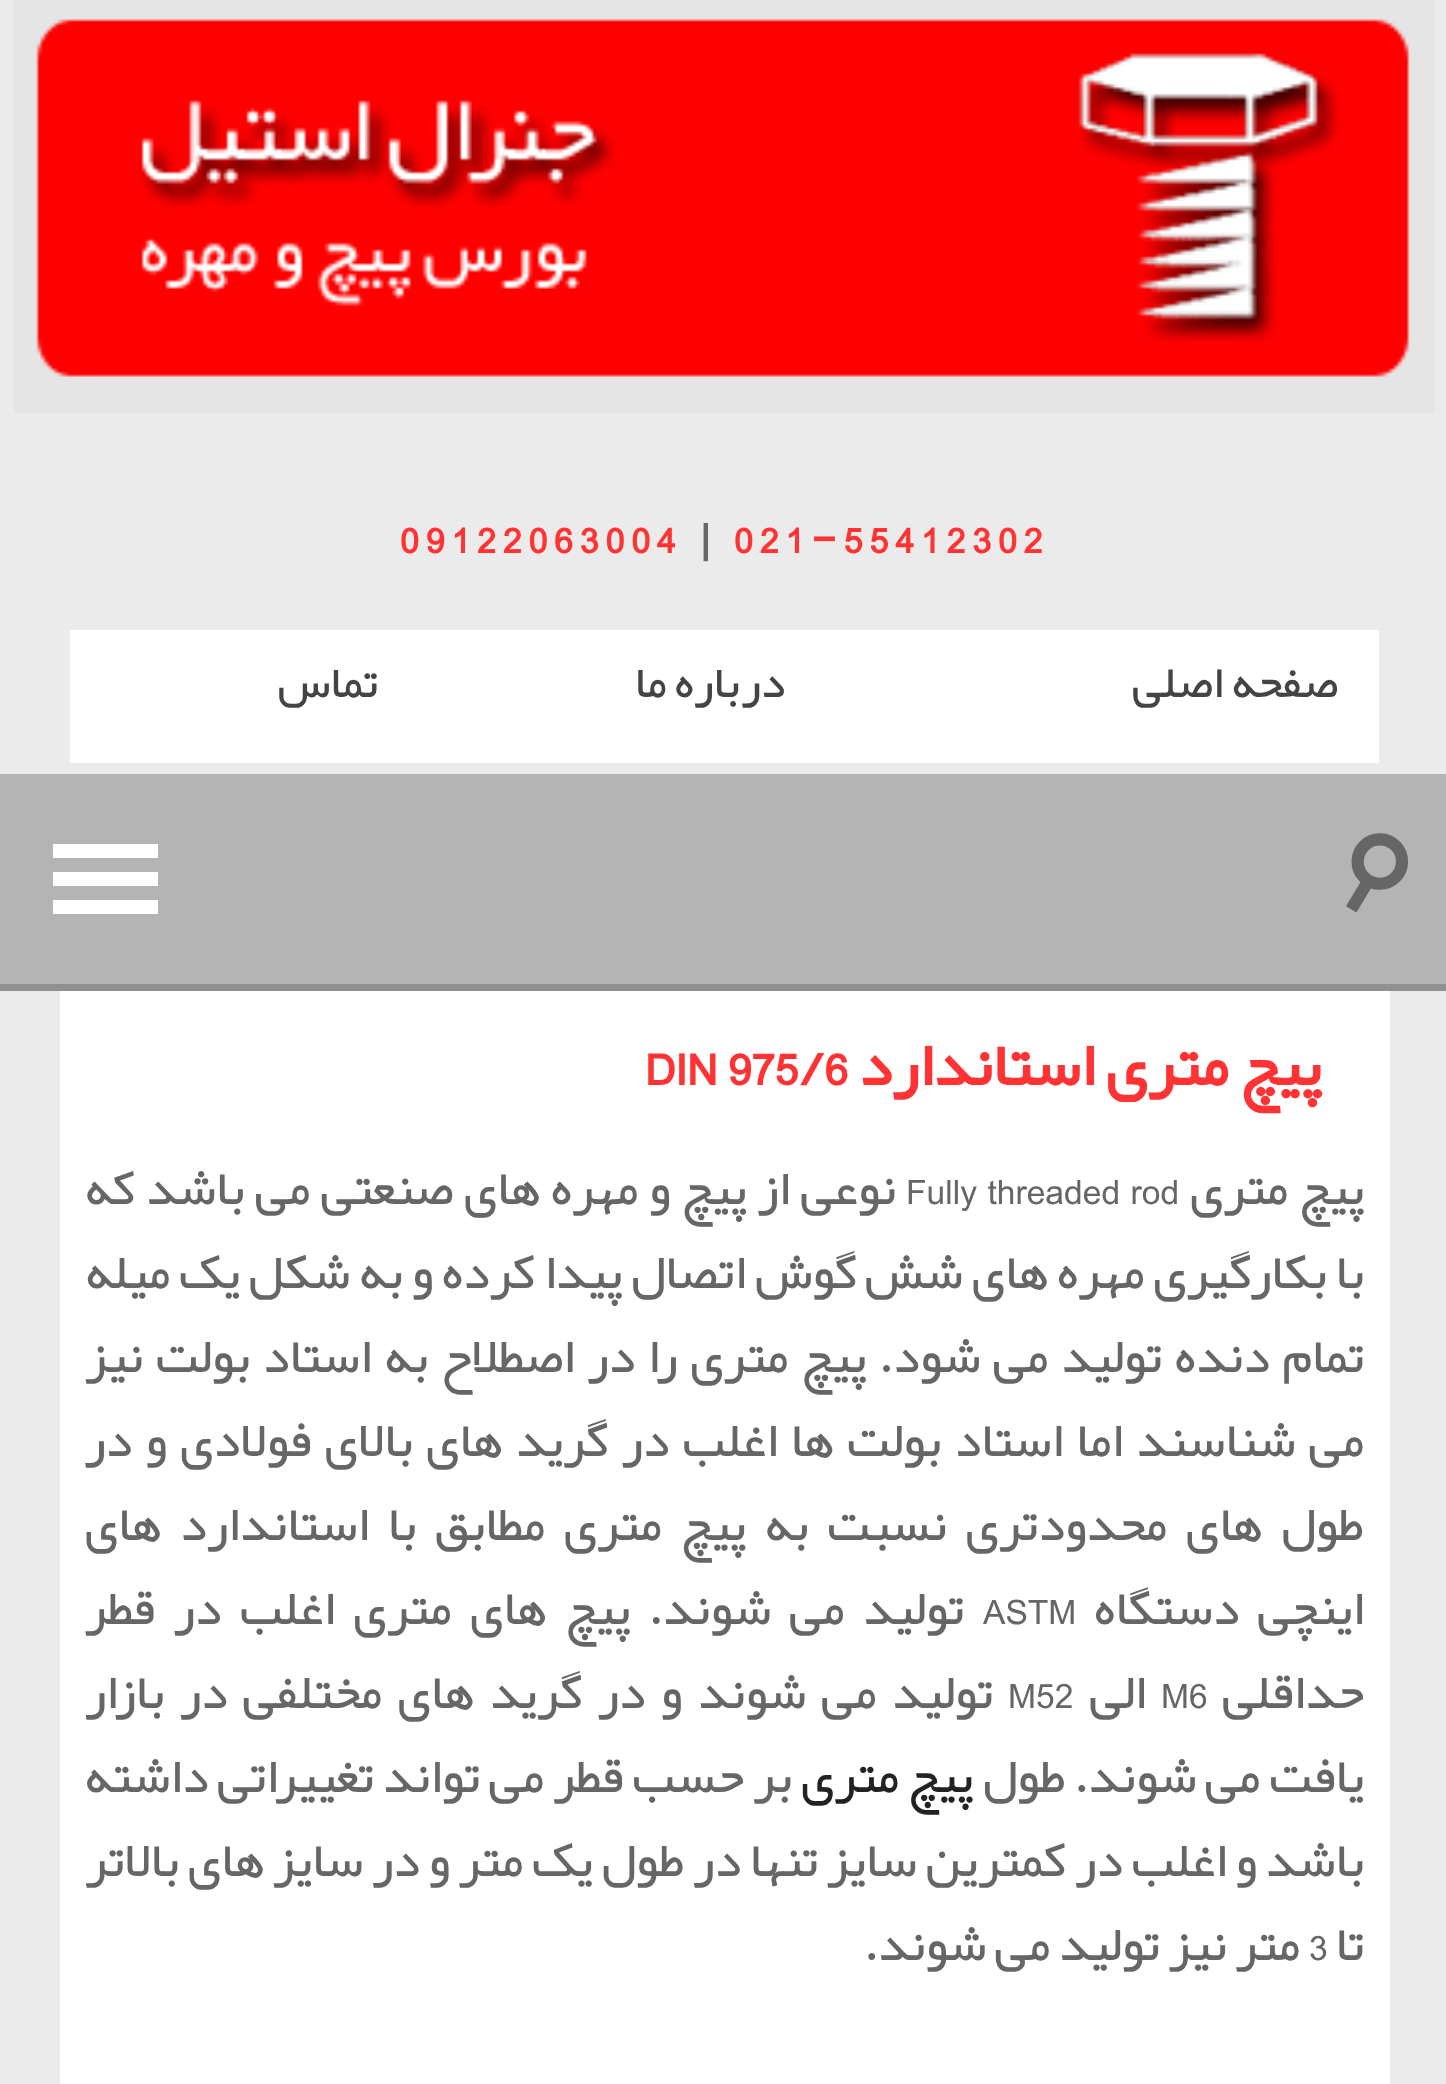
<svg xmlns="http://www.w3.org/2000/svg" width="1446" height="2084">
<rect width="100%" height="100%" fill="#ebebeb"/>
<image x="14" y="0" width="1421" height="413" href="media/1.png"/>
<text x="734" y="553" style="font-family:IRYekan;font-size:42px;font-weight:bold;letter-spacing:7px;fill:#f33">021-55412302</text>
<text x="700" y="553" style="font-family:IRYekan;font-size:49px;font-weight:bold;letter-spacing:7px;fill:#666">|</text>
<text x="400" y="553" style="font-family:IRYekan;font-size:42px;font-weight:bold;letter-spacing:7px;fill:#f33">09122063004</text>
<rect x="70" y="630" width="1309" height="133" fill="#fff"/>
<text x="1338" y="697" style="font-family:IRYekan;font-size:38.5px;direction:rtl;fill:#444">صفحه اصلی</text>
<text x="785" y="697" style="font-family:IRYekan;font-size:38.5px;direction:rtl;fill:#444">درباره ما</text>
<text x="378" y="697" style="font-family:IRYekan;font-size:38.5px;direction:rtl;fill:#444">تماس</text>
<rect y="774" width="1446" height="210" fill="#b4b4b4"/>
<text x="1415" y="834" transform="rotate(-179 1415 834)" style="font-family:DejaVu Sans;font-size:105px;font-weight:bold;fill:#666">☌</text>
<rect x="53" y="844" width="105" height="14" fill="#fff"/>
<rect x="53" y="872" width="105" height="14" fill="#fff"/>
<rect x="53" y="900" width="105" height="14" fill="#fff"/>
<rect y="984" width="1446" height="7" fill="#909090"/>
<rect x="60" y="991" width="1330" height="1093" fill="#fff"/>
<text x="1321" y="1085" style="font-family:IRYekan;font-size:52.5px;font-weight:bold;direction:rtl;fill:#f33">پیچ متری استاندارد</text>
<text x="645" y="1085" style="font-family:IRYekan;font-size:52.5px;font-weight:bold;fill:#f33">DIN 975/6</text>
<text x="1364" y="1204" word-spacing="2" style="font-family:IRYekan;font-size:42px;direction:rtl;fill:#666">پیچ متری</text>
<text x="906" y="1204" word-spacing="2" style="font-family:IRYekan;font-size:42px;fill:#666">Fully threaded rod</text>
<text x="896" y="1204" word-spacing="2" style="font-family:IRYekan;font-size:42px;direction:rtl;fill:#666">نوعی از پیچ و مهره های صنعتی می باشد که</text>
<text x="1364" y="1288" word-spacing="0.1" style="font-family:IRYekan;font-size:42px;direction:rtl;fill:#666">با بکارگیری مهره های شش گوش اتصال پیدا کرده و به شکل یک میله</text>
<text x="1364" y="1372" word-spacing="4" style="font-family:IRYekan;font-size:42px;direction:rtl;fill:#666">تمام دنده تولید می شود. پیچ متری را در اصطلاح به استاد بولت نیز</text>
<text x="1364" y="1456" word-spacing="4.5" style="font-family:IRYekan;font-size:42px;direction:rtl;fill:#666">می شناسند اما استاد بولت ها اغلب در گرید های بالای فولادی و در</text>
<text x="1364" y="1540" word-spacing="10" style="font-family:IRYekan;font-size:42px;direction:rtl;fill:#666">طول های محدودتری نسبت به پیچ متری مطابق با استاندارد های</text>
<text x="1364" y="1624" word-spacing="9.75" style="font-family:IRYekan;font-size:42px;direction:rtl;fill:#666">اینچی دستگاه</text>
<text x="983" y="1624" style="font-family:IRYekan;font-size:42px;fill:#666">ASTM</text>
<text x="964" y="1624" word-spacing="9.75" style="font-family:IRYekan;font-size:42px;direction:rtl;fill:#666">تولید می شوند. پیچ های متری اغلب در قطر</text>
<text x="1364" y="1708" style="font-family:IRYekan;font-size:42px;direction:rtl;fill:#666">حداقلی</text>
<text x="1161" y="1708" style="font-family:IRYekan;font-size:42px;fill:#666">M6</text>
<text x="1146" y="1708" style="font-family:IRYekan;font-size:42px;direction:rtl;fill:#666">الی</text>
<text x="1008" y="1708" style="font-family:IRYekan;font-size:42px;fill:#666">M52</text>
<text x="993" y="1708" word-spacing="6.75" style="font-family:IRYekan;font-size:42px;direction:rtl;fill:#666">تولید می شوند و در گرید های مختلفی در بازار</text>
<text x="1364" y="1792" style="font-family:IRYekan;font-size:42px;direction:rtl;fill:#666">یافت می شوند. طول</text>
<text x="973" y="1792" style="font-family:IRYekan;font-size:42px;direction:rtl;fill:#222">پیچ متری</text>
<text x="792" y="1792" word-spacing="0.25" style="font-family:IRYekan;font-size:42px;direction:rtl;fill:#666">بر حسب قطر می تواند تغییراتی داشته</text>
<text x="1364" y="1876" style="font-family:IRYekan;font-size:42px;direction:rtl;fill:#666">باشد و اغلب در کمترین سایز تنها در طول یک متر و در سایز های بالاتر</text>
<text x="1364" y="1960" style="font-family:IRYekan;font-size:42px;direction:rtl;fill:#666">تا</text>
<text x="1309" y="1960" style="font-family:IRYekan;font-size:42px;fill:#666">3</text>
<text x="1300" y="1960" style="font-family:IRYekan;font-size:42px;direction:rtl;fill:#666">متر نیز تولید می شوند.</text>
</svg>
